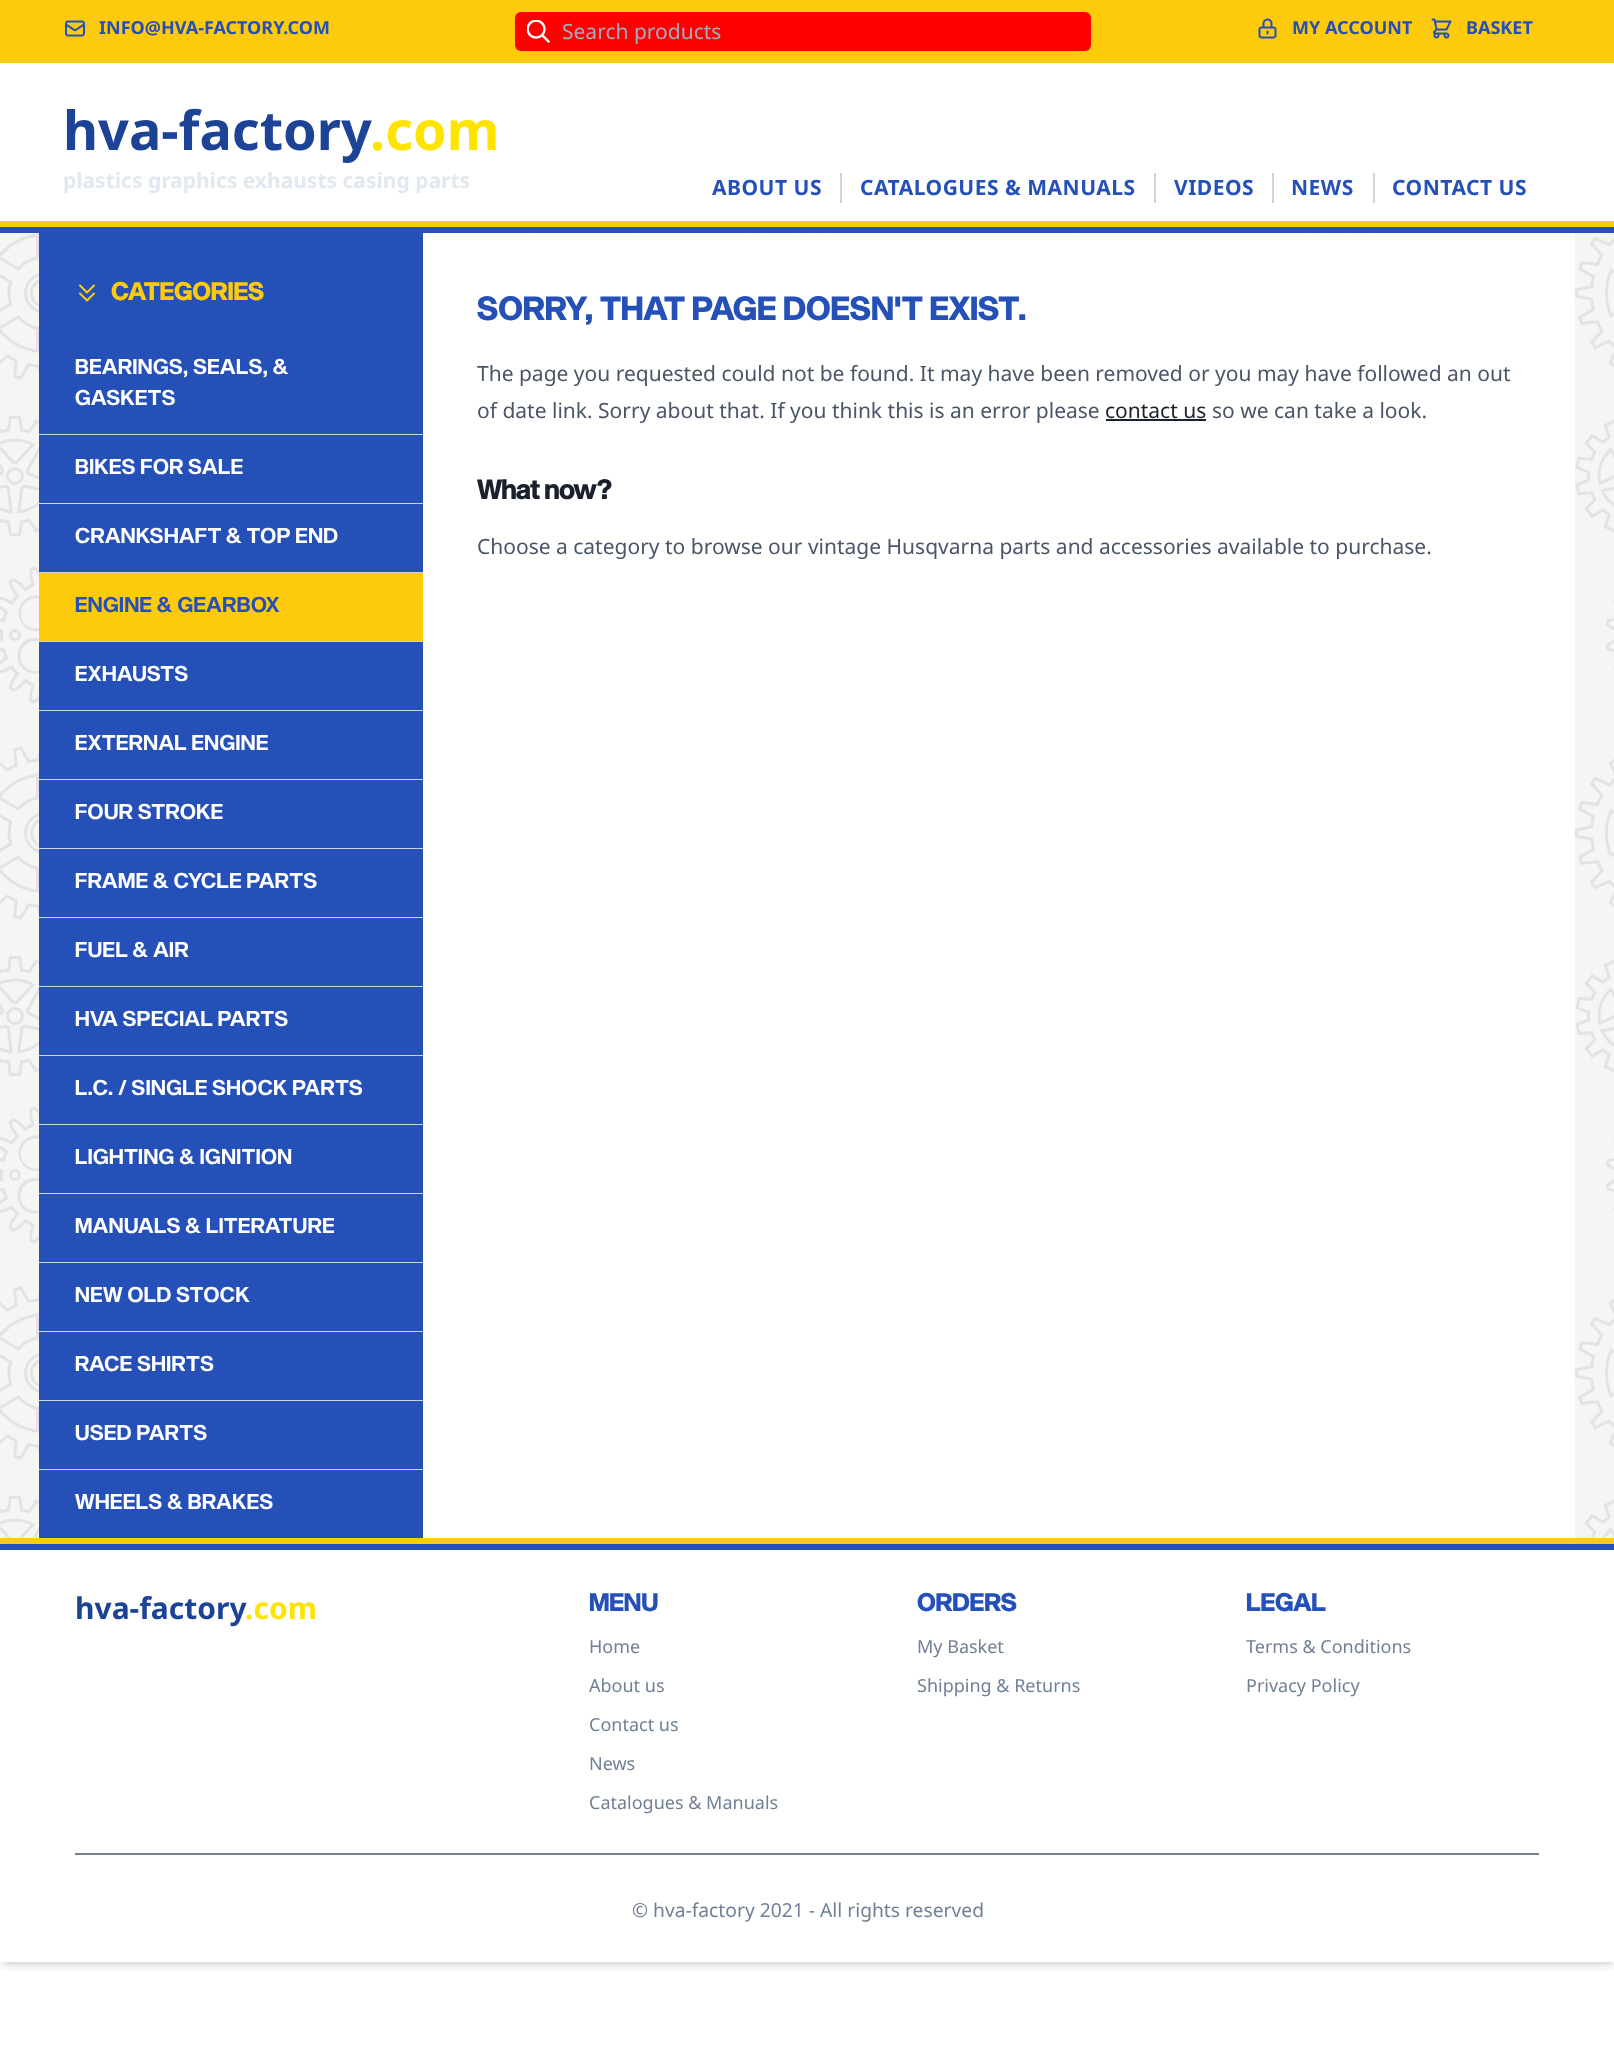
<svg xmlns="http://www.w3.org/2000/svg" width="1614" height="2054">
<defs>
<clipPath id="clip1"><rect x="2" y="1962" width="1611" height="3"/></clipPath>
<clipPath id="clip2"><rect x="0" y="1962" width="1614" height="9"/></clipPath>
</defs>
<rect width="100%" height="100%" fill="#fff"/>
<rect width="1614" height="63" fill="#feca0c"/>
<image x="65" y="20" width="20" height="17" href="media/1.png"/>
<text x="99" y="34" style="font-family:Noto Sans;font-size:18px;font-weight:bold;fill:#2550b8">INFO@HVA-FACTORY.COM</text>
<rect x="515" y="12" width="576" height="39" rx="6" fill="#f00"/>
<image x="527" y="20" width="23" height="23" href="media/2.png"/>
<text x="562" y="39" style="font-family:Noto Sans;font-size:21px;fill:#a0aec0">Search products</text>
<image x="1258" y="18" width="19" height="21" href="media/3.png"/>
<text x="1292" y="34" style="font-family:Noto Sans;font-size:18px;font-weight:bold;fill:#2550b8">MY ACCOUNT</text>
<image x="1431" y="18" width="21" height="21" href="media/4.png"/>
<text x="1466" y="34" style="font-family:Noto Sans;font-size:18px;font-weight:bold;fill:#2550b8">BASKET</text>
<text x="63" y="150" style="font-family:Noto Sans;font-size:54px;font-weight:bold;fill:#1c4395">hva-factory</text>
<text x="370" y="150" style="font-family:Noto Sans;font-size:54px;font-weight:bold;fill:#ffe400">.com</text>
<text x="63" y="188" style="font-family:Noto Sans;font-size:21px;font-weight:bold;fill:#e2e8f0">plastics graphics exhausts casing parts</text>
<text x="712" y="195" style="font-family:Noto Sans;font-size:21px;font-weight:bold;letter-spacing:0.5px;fill:#2550b8">ABOUT US</text>
<rect x="840" y="173" width="2" height="30" fill="#cbd5e0"/>
<text x="860" y="195" style="font-family:Noto Sans;font-size:21px;font-weight:bold;letter-spacing:0.5px;fill:#2550b8">CATALOGUES &amp; MANUALS</text>
<rect x="1154" y="173" width="2" height="30" fill="#cbd5e0"/>
<text x="1174" y="195" style="font-family:Noto Sans;font-size:21px;font-weight:bold;letter-spacing:0.5px;fill:#2550b8">VIDEOS</text>
<rect x="1272" y="173" width="2" height="30" fill="#cbd5e0"/>
<text x="1291" y="195" style="font-family:Noto Sans;font-size:21px;font-weight:bold;letter-spacing:0.5px;fill:#2550b8">NEWS</text>
<rect x="1373" y="173" width="2" height="30" fill="#cbd5e0"/>
<text x="1392" y="195" style="font-family:Noto Sans;font-size:21px;font-weight:bold;letter-spacing:0.5px;fill:#2550b8">CONTACT US</text>
<rect y="221" width="1614" height="6" fill="#feca0c"/>
<rect y="227" width="1614" height="6" fill="#2550b8"/>
<rect y="233" width="1614" height="1305" fill="#f5f5f5"/>
<image x="0" y="232" width="1614" height="1306" href="media/5.png"/>
<rect x="423" y="233" width="1152" height="1305" fill="#fff"/>
<rect x="39" y="233" width="384" height="201" fill="#2550b8"/>
<path d="M94 293.5l-7 7l-7-7m14-8l-7 7l-7-7" fill="none" stroke="#feca0c" stroke-width="2" stroke-linecap="round" stroke-linejoin="round"/>
<text x="111" y="300" style="font-family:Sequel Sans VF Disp;font-size:24px;font-weight:bold;letter-spacing:0.5px;fill:#feca0c">CATEGORIES</text>
<text x="75" y="374" style="font-family:Sequel Sans VF Disp;font-size:21px;letter-spacing:0.5px;fill:#fff">BEARINGS, SEALS, &amp;</text>
<text x="75" y="405" style="font-family:Sequel Sans VF Disp;font-size:21px;letter-spacing:0.5px;fill:#fff">GASKETS</text>
<rect x="39" y="434" width="384" height="1" fill="#cbd5e0"/>
<rect x="39" y="435" width="384" height="68" fill="#2550b8"/>
<text x="75" y="474" style="font-family:Sequel Sans VF Disp;font-size:21px;letter-spacing:0.5px;fill:#fff">BIKES FOR SALE</text>
<rect x="39" y="503" width="384" height="1" fill="#cbd5e0"/>
<rect x="39" y="504" width="384" height="68" fill="#2550b8"/>
<text x="75" y="543" style="font-family:Sequel Sans VF Disp;font-size:21px;letter-spacing:0.5px;fill:#fff">CRANKSHAFT &amp; TOP END</text>
<rect x="39" y="572" width="384" height="1" fill="#cbd5e0"/>
<rect x="39" y="573" width="384" height="68" fill="#feca0c"/>
<text x="75" y="612" style="font-family:Sequel Sans VF Disp;font-size:21px;letter-spacing:0.5px;fill:#2550b8">ENGINE &amp; GEARBOX</text>
<rect x="39" y="641" width="384" height="1" fill="#cbd5e0"/>
<rect x="39" y="642" width="384" height="68" fill="#2550b8"/>
<text x="75" y="681" style="font-family:Sequel Sans VF Disp;font-size:21px;letter-spacing:0.5px;fill:#fff">EXHAUSTS</text>
<rect x="39" y="710" width="384" height="1" fill="#cbd5e0"/>
<rect x="39" y="711" width="384" height="68" fill="#2550b8"/>
<text x="75" y="750" style="font-family:Sequel Sans VF Disp;font-size:21px;letter-spacing:0.5px;fill:#fff">EXTERNAL ENGINE</text>
<rect x="39" y="779" width="384" height="1" fill="#cbd5e0"/>
<rect x="39" y="780" width="384" height="68" fill="#2550b8"/>
<text x="75" y="819" style="font-family:Sequel Sans VF Disp;font-size:21px;letter-spacing:0.5px;fill:#fff">FOUR STROKE</text>
<rect x="39" y="848" width="384" height="1" fill="#cbd5e0"/>
<rect x="39" y="849" width="384" height="68" fill="#2550b8"/>
<text x="75" y="888" style="font-family:Sequel Sans VF Disp;font-size:21px;letter-spacing:0.5px;fill:#fff">FRAME &amp; CYCLE PARTS</text>
<rect x="39" y="917" width="384" height="1" fill="#cbd5e0"/>
<rect x="39" y="918" width="384" height="68" fill="#2550b8"/>
<text x="75" y="957" style="font-family:Sequel Sans VF Disp;font-size:21px;letter-spacing:0.5px;fill:#fff">FUEL &amp; AIR</text>
<rect x="39" y="986" width="384" height="1" fill="#cbd5e0"/>
<rect x="39" y="987" width="384" height="68" fill="#2550b8"/>
<text x="75" y="1026" style="font-family:Sequel Sans VF Disp;font-size:21px;letter-spacing:0.5px;fill:#fff">HVA SPECIAL PARTS</text>
<rect x="39" y="1055" width="384" height="1" fill="#cbd5e0"/>
<rect x="39" y="1056" width="384" height="68" fill="#2550b8"/>
<text x="75" y="1095" style="font-family:Sequel Sans VF Disp;font-size:21px;letter-spacing:0.5px;fill:#fff">L.C. / SINGLE SHOCK PARTS</text>
<rect x="39" y="1124" width="384" height="1" fill="#cbd5e0"/>
<rect x="39" y="1125" width="384" height="68" fill="#2550b8"/>
<text x="75" y="1164" style="font-family:Sequel Sans VF Disp;font-size:21px;letter-spacing:0.5px;fill:#fff">LIGHTING &amp; IGNITION</text>
<rect x="39" y="1193" width="384" height="1" fill="#cbd5e0"/>
<rect x="39" y="1194" width="384" height="68" fill="#2550b8"/>
<text x="75" y="1233" style="font-family:Sequel Sans VF Disp;font-size:21px;letter-spacing:0.5px;fill:#fff">MANUALS &amp; LITERATURE</text>
<rect x="39" y="1262" width="384" height="1" fill="#cbd5e0"/>
<rect x="39" y="1263" width="384" height="68" fill="#2550b8"/>
<text x="75" y="1302" style="font-family:Sequel Sans VF Disp;font-size:21px;letter-spacing:0.5px;fill:#fff">NEW OLD STOCK</text>
<rect x="39" y="1331" width="384" height="1" fill="#cbd5e0"/>
<rect x="39" y="1332" width="384" height="68" fill="#2550b8"/>
<text x="75" y="1371" style="font-family:Sequel Sans VF Disp;font-size:21px;letter-spacing:0.5px;fill:#fff">RACE SHIRTS</text>
<rect x="39" y="1400" width="384" height="1" fill="#cbd5e0"/>
<rect x="39" y="1401" width="384" height="68" fill="#2550b8"/>
<text x="75" y="1440" style="font-family:Sequel Sans VF Disp;font-size:21px;letter-spacing:0.5px;fill:#fff">USED PARTS</text>
<rect x="39" y="1469" width="384" height="1" fill="#cbd5e0"/>
<rect x="39" y="1470" width="384" height="68" fill="#2550b8"/>
<text x="75" y="1509" style="font-family:Sequel Sans VF Disp;font-size:21px;letter-spacing:0.5px;fill:#fff">WHEELS &amp; BRAKES</text>
<text x="477" y="320" style="font-family:Sequel Sans VF Disp;font-size:31.5px;font-weight:bold;letter-spacing:0.8px;fill:#2550b8">SORRY, THAT PAGE DOESN'T EXIST.</text>
<text x="477" y="381" style="font-family:Noto Sans;font-size:21px;fill:#4a5568">The page you requested could not be found. It may have been removed or you may have followed an out</text>
<text x="477" y="418" style="font-family:Noto Sans;font-size:21px;fill:#4a5568">of date link. Sorry about that. If you think this is an error please</text>
<text x="1105" y="418" style="font-family:Noto Sans;font-size:21px;fill:#1a202c">contact us</text>
<rect x="1106" y="419" width="100" height="2" fill="#1a202c"/>
<text x="1212" y="418" style="font-family:Noto Sans;font-size:21px;fill:#4a5568">so we can take a look.</text>
<text x="477" y="499" style="font-family:Sequel Sans VF Disp;font-size:26.25px;font-weight:bold;fill:#1a202c">What now?</text>
<text x="477" y="554" style="font-family:Noto Sans;font-size:21px;fill:#4a5568">Choose a category to browse our vintage Husqvarna parts and accessories available to purchase.</text>
<rect y="1538" width="1614" height="6" fill="#feca0c"/>
<rect y="1544" width="1614" height="6" fill="#2550b8"/>
<g clip-path="url(#clip1)">
<rect x="2" y="1554" width="1611" height="410" fill="#0000000f" filter="blur(3px)"/>
</g>
<g clip-path="url(#clip2)">
<rect x="2" y="1557" width="1611" height="410" fill="#0000001a" filter="blur(4.5px)"/>
</g>
<text x="75" y="1619" style="font-family:Noto Sans;font-size:30px;font-weight:bold;fill:#1c4395">hva-factory</text>
<text x="245" y="1619" style="font-family:Noto Sans;font-size:30px;font-weight:bold;fill:#ffe400">.com</text>
<text x="589" y="1611" style="font-family:Sequel Sans VF Disp;font-size:24px;font-weight:bold;letter-spacing:0.5px;fill:#2550b8">MENU</text>
<text x="589" y="1653" style="font-family:Noto Sans;font-size:18px;fill:#718096">Home</text>
<text x="589" y="1692" style="font-family:Noto Sans;font-size:18px;fill:#718096">About us</text>
<text x="589" y="1731" style="font-family:Noto Sans;font-size:18px;fill:#718096">Contact us</text>
<text x="589" y="1770" style="font-family:Noto Sans;font-size:18px;fill:#718096">News</text>
<text x="589" y="1809" style="font-family:Noto Sans;font-size:18px;fill:#718096">Catalogues &amp; Manuals</text>
<text x="917" y="1611" style="font-family:Sequel Sans VF Disp;font-size:24px;font-weight:bold;letter-spacing:0.5px;fill:#2550b8">ORDERS</text>
<text x="917" y="1653" style="font-family:Noto Sans;font-size:18px;fill:#718096">My Basket</text>
<text x="917" y="1692" style="font-family:Noto Sans;font-size:18px;fill:#718096">Shipping &amp; Returns</text>
<text x="1246" y="1611" style="font-family:Sequel Sans VF Disp;font-size:24px;font-weight:bold;letter-spacing:0.5px;fill:#2550b8">LEGAL</text>
<text x="1246" y="1653" style="font-family:Noto Sans;font-size:18px;fill:#718096">Terms &amp; Conditions</text>
<text x="1246" y="1692" style="font-family:Noto Sans;font-size:18px;fill:#718096">Privacy Policy</text>
<rect x="75" y="1853" width="1464" height="2" fill="#718096"/>
<text x="632" y="1917" style="font-family:Noto Sans;font-size:19.25px;fill:#718096">© hva-factory 2021 - All rights reserved</text>
</svg>
